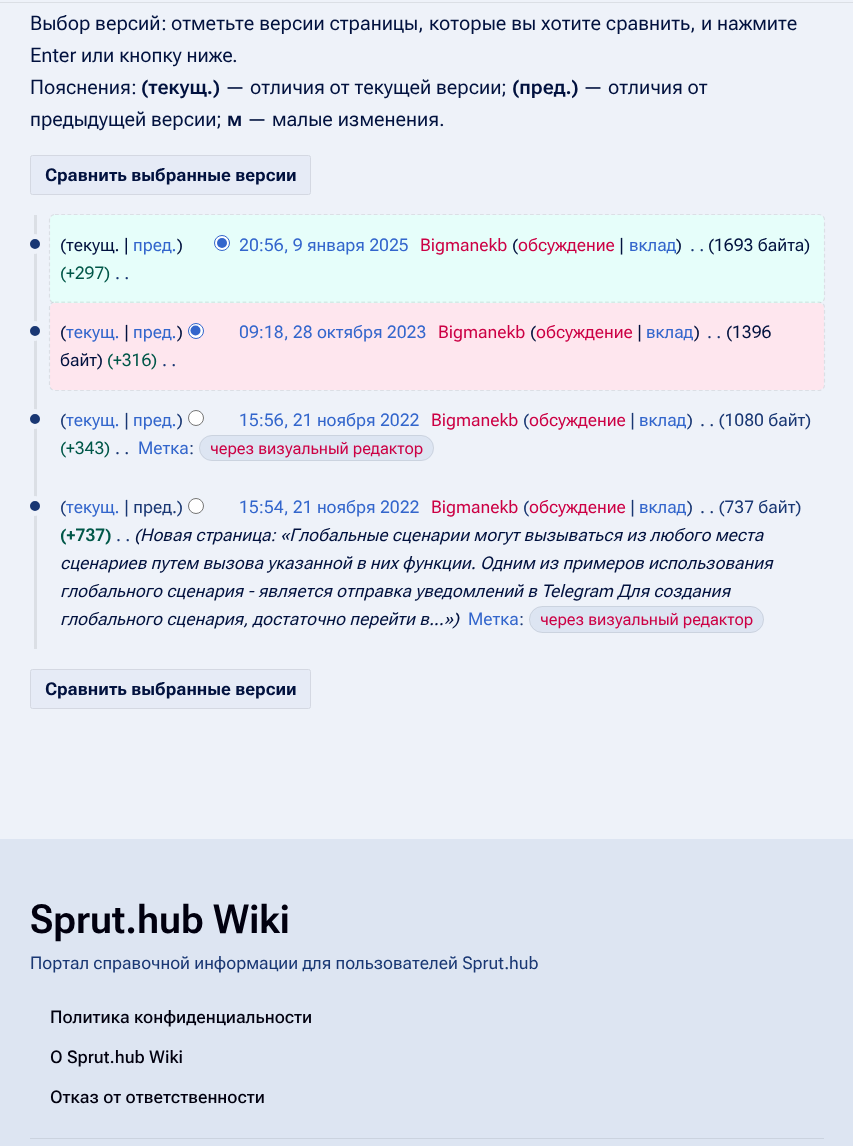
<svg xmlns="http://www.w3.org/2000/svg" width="853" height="1146">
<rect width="100%" height="100%" fill="#eef2f9"/>
<rect x="-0.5" y="-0.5" width="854" height="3" fill="none" stroke="#dbdfe5"/>
<text x="30" y="30" style="font-family:Roboto Flex;font-size:20px;fill:#01113e">Выбор версий</text>
<text x="161" y="30" style="font-family:'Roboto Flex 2';font-size:20px;fill:#01113e">:</text>
<text x="171" y="30" style="font-family:Roboto Flex;font-size:20px;fill:#01113e">отметьте версии страницы</text>
<text x="418" y="30" style="font-family:'Roboto Flex 2';font-size:20px;fill:#01113e">,</text>
<text x="429" y="30" style="font-family:Roboto Flex;font-size:20px;fill:#01113e">которые вы хотите сравнить</text>
<text x="690" y="30" style="font-family:'Roboto Flex 2';font-size:20px;fill:#01113e">,</text>
<text x="701" y="30" style="font-family:Roboto Flex;font-size:20px;fill:#01113e">и нажмите</text>
<text x="30" y="62" style="font-family:'Roboto Flex 2';font-size:20px;fill:#01113e">Enter</text>
<text x="81" y="62" style="font-family:Roboto Flex;font-size:20px;fill:#01113e">или кнопку ниже</text>
<text x="232" y="62" style="font-family:'Roboto Flex 2';font-size:20px;fill:#01113e">.</text>
<text x="30" y="94" style="font-family:Roboto Flex;font-size:20px;fill:#01113e">Пояснения</text>
<text x="131" y="94" style="font-family:'Roboto Flex 2';font-size:20px;fill:#01113e">:</text>
<text x="141" y="94" style="font-family:Roboto Flex;font-size:20px;font-weight:600;fill:#01113e">(текущ.)</text>
<text x="225" y="94" style="font-family:'Roboto Flex 2';font-size:20px;fill:#01113e">—</text>
<text x="250" y="94" style="font-family:Roboto Flex;font-size:20px;fill:#01113e">отличия от текущей версии</text>
<text x="501" y="94" style="font-family:'Roboto Flex 2';font-size:20px;fill:#01113e">;</text>
<text x="512" y="94" style="font-family:Roboto Flex;font-size:20px;font-weight:600;fill:#01113e">(пред.)</text>
<text x="583" y="94" style="font-family:'Roboto Flex 2';font-size:20px;fill:#01113e">—</text>
<text x="608" y="94" style="font-family:Roboto Flex;font-size:20px;fill:#01113e">отличия от</text>
<text x="30" y="126" style="font-family:Roboto Flex;font-size:20px;fill:#01113e">предыдущей версии</text>
<text x="216" y="126" style="font-family:'Roboto Flex 2';font-size:20px;fill:#01113e">;</text>
<text x="227" y="126" style="font-family:Roboto Flex;font-size:20px;font-weight:600;fill:#01113e">м</text>
<text x="247" y="126" style="font-family:'Roboto Flex 2';font-size:20px;fill:#01113e">—</text>
<text x="272" y="126" style="font-family:Roboto Flex;font-size:20px;fill:#01113e">малые изменения</text>
<text x="439" y="126" style="font-family:'Roboto Flex 2';font-size:20px;fill:#01113e">.</text>
<rect x="30.5" y="155.5" width="280" height="39" rx="2" fill="#e6ebf6" stroke="#d4d8e2"/>
<text x="45" y="181" style="font-family:Roboto Flex;font-size:17.5px;font-weight:bold;fill:#01113e">Сравнить выбранные версии</text>
<rect x="34" y="215" width="3" height="434" fill="#dbdfe5"/>
<rect x="50" y="215" width="774" height="88" rx="5" fill="#e6fefa"/>
<circle cx="222" cy="243" r="7.5" fill="#fff" stroke="#36c"/>
<circle cx="222" cy="243" r="5" fill="#36c"/>
<path d="M55 214.5h764c3 0 5.5 2.5 5.5 5.5v77.5c0 3-2.5 5.5-5.5 5.5h-764c-3 0-5.5-2.5-5.5-5.5v-77.5c0-3 2.5-5.5 5.5-5.5z" fill="none" stroke="#00000014" stroke-width="1.2" stroke-dasharray="3.75 2.5"/>
<circle cx="35" cy="244" r="7.5" fill="#193773" stroke="#eef2f9" stroke-width="5"/>
<text x="60" y="251" style="font-family:'Roboto Flex 2';font-size:17.5px;fill:#01113e">(текущ. |</text>
<text x="133" y="251" style="font-family:'Roboto Flex 2';font-size:17.5px;fill:#36c">пред.</text>
<text x="177" y="251" style="font-family:'Roboto Flex 2';font-size:17.5px;fill:#01113e">)</text>
<text x="239" y="251" style="font-family:'Roboto Flex 2';font-size:17.5px;fill:#36c">20:56, 9 января 2025</text>
<text x="420" y="251" style="font-family:'Roboto Flex 2';font-size:17.5px;fill:#c04">Bigmanekb</text>
<text x="512" y="251" style="font-family:'Roboto Flex 2';font-size:17.5px;fill:#01113e">(</text>
<text x="518" y="251" style="font-family:'Roboto Flex 2';font-size:17.5px;fill:#c04">обсуждение</text>
<text x="619" y="251" style="font-family:'Roboto Flex 2';font-size:17.5px;fill:#01113e">|</text>
<text x="629" y="251" style="font-family:'Roboto Flex 2';font-size:17.5px;fill:#36c">вклад</text>
<text x="676" y="251" style="font-family:'Roboto Flex 2';font-size:17.5px;fill:#01113e">)</text>
<text x="690" y="251" style="font-family:'Roboto Flex 2';font-size:17.5px;fill:#193773">. .</text>
<text x="708" y="251" style="font-family:'Roboto Flex 2';font-size:17.5px;fill:#01113e">(1693 байта)</text>
<text x="60" y="279" style="font-family:'Roboto Flex 2';font-size:17.5px;fill:#005748">(+297)</text>
<text x="115" y="279" style="font-family:'Roboto Flex 2';font-size:17.5px;fill:#193773">. .</text>
<rect x="50" y="303" width="774" height="87" rx="5" fill="#fee6ee"/>
<circle cx="196" cy="331" r="7.5" fill="#fff" stroke="#36c"/>
<circle cx="195.5" cy="330.5" r="5" fill="#36c"/>
<path d="M55 302h764c3 0 5.5 2.5 5.5 5.5v77.5c0 3-2.5 5.5-5.5 5.5h-764c-3 0-5.5-2.5-5.5-5.5v-77.5c0-3 2.5-5.5 5.5-5.5z" fill="none" stroke="#00000014" stroke-width="1.2" stroke-dasharray="3.75 2.5"/>
<circle cx="35" cy="331" r="7.5" fill="#193773" stroke="#eef2f9" stroke-width="5"/>
<text x="60" y="338" style="font-family:'Roboto Flex 2';font-size:17.5px;fill:#01113e">(</text>
<text x="66" y="338" style="font-family:'Roboto Flex 2';font-size:17.5px;fill:#36c">текущ.</text>
<text x="124" y="338" style="font-family:'Roboto Flex 2';font-size:17.5px;fill:#01113e">|</text>
<text x="133" y="338" style="font-family:'Roboto Flex 2';font-size:17.5px;fill:#36c">пред.</text>
<text x="177" y="338" style="font-family:'Roboto Flex 2';font-size:17.5px;fill:#01113e">)</text>
<text x="239" y="338" style="font-family:'Roboto Flex 2';font-size:17.5px;fill:#36c">09:18, 28 октября 2023</text>
<text x="438" y="338" style="font-family:'Roboto Flex 2';font-size:17.5px;fill:#c04">Bigmanekb</text>
<text x="530" y="338" style="font-family:'Roboto Flex 2';font-size:17.5px;fill:#01113e">(</text>
<text x="536" y="338" style="font-family:'Roboto Flex 2';font-size:17.5px;fill:#c04">обсуждение</text>
<text x="637" y="338" style="font-family:'Roboto Flex 2';font-size:17.5px;fill:#01113e">|</text>
<text x="646" y="338" style="font-family:'Roboto Flex 2';font-size:17.5px;fill:#36c">вклад</text>
<text x="694" y="338" style="font-family:'Roboto Flex 2';font-size:17.5px;fill:#01113e">)</text>
<text x="707" y="338" style="font-family:'Roboto Flex 2';font-size:17.5px;fill:#193773">. .</text>
<text x="726" y="338" style="font-family:'Roboto Flex 2';font-size:17.5px;fill:#01113e">(1396</text>
<text x="60" y="366" style="font-family:'Roboto Flex 2';font-size:17.5px;fill:#01113e">байт)</text>
<text x="107" y="366" style="font-family:'Roboto Flex 2';font-size:17.5px;fill:#005748">(+316)</text>
<text x="162" y="366" style="font-family:'Roboto Flex 2';font-size:17.5px;fill:#193773">. .</text>
<circle cx="35" cy="419" r="7.5" fill="#193773" stroke="#eef2f9" stroke-width="5"/>
<text x="60" y="426" style="font-family:'Roboto Flex 2';font-size:17.5px;fill:#193773">(</text>
<text x="66" y="426" style="font-family:'Roboto Flex 2';font-size:17.5px;fill:#36c">текущ.</text>
<text x="124" y="426" style="font-family:'Roboto Flex 2';font-size:17.5px;fill:#193773">|</text>
<text x="133" y="426" style="font-family:'Roboto Flex 2';font-size:17.5px;fill:#36c">пред.</text>
<text x="177" y="426" style="font-family:'Roboto Flex 2';font-size:17.5px;fill:#193773">)</text>
<circle cx="196" cy="418" r="7.5" fill="#fff" stroke="#767676"/>
<text x="239" y="426" style="font-family:'Roboto Flex 2';font-size:17.5px;fill:#36c">15:56, 21 ноября 2022</text>
<text x="431" y="426" style="font-family:'Roboto Flex 2';font-size:17.5px;fill:#c04">Bigmanekb</text>
<text x="523" y="426" style="font-family:'Roboto Flex 2';font-size:17.5px;fill:#193773">(</text>
<text x="529" y="426" style="font-family:'Roboto Flex 2';font-size:17.5px;fill:#c04">обсуждение</text>
<text x="630" y="426" style="font-family:'Roboto Flex 2';font-size:17.5px;fill:#193773">|</text>
<text x="639" y="426" style="font-family:'Roboto Flex 2';font-size:17.5px;fill:#36c">вклад</text>
<text x="687" y="426" style="font-family:'Roboto Flex 2';font-size:17.5px;fill:#193773">)</text>
<text x="700" y="426" style="font-family:'Roboto Flex 2';font-size:17.5px;fill:#193773">. . (1080 байт)</text>
<text x="60" y="454" style="font-family:'Roboto Flex 2';font-size:17.5px;fill:#005748">(+343)</text>
<text x="115" y="454" style="font-family:'Roboto Flex 2';font-size:17.5px;fill:#193773">. .</text>
<text x="138" y="454" style="font-family:'Roboto Flex 2';font-size:17.5px;fill:#36c">Метка</text>
<text x="189" y="454" style="font-family:'Roboto Flex 2';font-size:17.5px;fill:#193773">:</text>
<rect x="199" y="435" width="235" height="26" rx="13" fill="#dde5f2"/>
<rect x="199.5" y="435.5" width="234" height="25" rx="12.5" fill="none" stroke="#00000014"/>
<text x="210" y="454" style="font-family:'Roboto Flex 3';font-size:16.25px;fill:#c04">через визуальный редактор</text>
<circle cx="35" cy="506" r="7.5" fill="#193773" stroke="#eef2f9" stroke-width="5"/>
<text x="60" y="513" style="font-family:'Roboto Flex 2';font-size:17.5px;fill:#193773">(</text>
<text x="66" y="513" style="font-family:'Roboto Flex 2';font-size:17.5px;fill:#36c">текущ.</text>
<text x="124" y="513" style="font-family:'Roboto Flex 2';font-size:17.5px;fill:#193773">| пред.)</text>
<circle cx="196" cy="506" r="7.5" fill="#fff" stroke="#767676"/>
<text x="239" y="513" style="font-family:'Roboto Flex 2';font-size:17.5px;fill:#36c">15:54, 21 ноября 2022</text>
<text x="431" y="513" style="font-family:'Roboto Flex 2';font-size:17.5px;fill:#c04">Bigmanekb</text>
<text x="523" y="513" style="font-family:'Roboto Flex 2';font-size:17.5px;fill:#193773">(</text>
<text x="529" y="513" style="font-family:'Roboto Flex 2';font-size:17.5px;fill:#c04">обсуждение</text>
<text x="630" y="513" style="font-family:'Roboto Flex 2';font-size:17.5px;fill:#193773">|</text>
<text x="639" y="513" style="font-family:'Roboto Flex 2';font-size:17.5px;fill:#36c">вклад</text>
<text x="687" y="513" style="font-family:'Roboto Flex 2';font-size:17.5px;fill:#193773">)</text>
<text x="700" y="513" style="font-family:'Roboto Flex 2';font-size:17.5px;fill:#193773">. . (737 байт)</text>
<text x="60" y="541" style="font-family:Roboto Flex;font-size:17.5px;font-weight:600;fill:#005748">(+737)</text>
<text x="116" y="541" style="font-family:'Roboto Flex 2';font-size:17.5px;fill:#193773">. .</text>
<text x="134" y="541" style="font-family:Roboto Flex;font-size:17.5px;font-style:italic;fill:#01113e">(Новая страница: «Глобальные сценарии могут вызываться из любого места</text>
<text x="60" y="569" style="font-family:Roboto Flex;font-size:17.5px;font-style:italic;fill:#01113e">сценариев путем вызова указанной в них функции. Одним из примеров использования</text>
<text x="60" y="597" style="font-family:Roboto Flex;font-size:17.5px;font-style:italic;fill:#01113e">глобального сценария - является отправка уведомлений в Telegram Для создания</text>
<text x="60" y="625" style="font-family:Roboto Flex;font-size:17.5px;font-style:italic;fill:#01113e">глобального сценария, достаточно перейти в...»)</text>
<text x="468" y="625" style="font-family:'Roboto Flex 2';font-size:17.5px;fill:#36c">Метка</text>
<text x="519" y="625" style="font-family:'Roboto Flex 2';font-size:17.5px;fill:#193773">:</text>
<rect x="529" y="606" width="235" height="27" rx="13.5" fill="#dde5f2"/>
<rect x="529.5" y="606.5" width="234" height="26" rx="13" fill="none" stroke="#00000014"/>
<text x="540" y="625" style="font-family:'Roboto Flex 3';font-size:16.25px;fill:#c04">через визуальный редактор</text>
<rect x="30.5" y="669.5" width="280" height="39" rx="2" fill="#e6ebf6" stroke="#d4d8e2"/>
<text x="45" y="695" style="font-family:Roboto Flex;font-size:17.5px;font-weight:bold;fill:#01113e">Сравнить выбранные версии</text>
<rect y="839" width="853" height="307" fill="#dde5f2"/>
<text x="30" y="933" style="font-family:'Roboto Flex 2';font-size:40px;font-weight:600;fill:#01000f">Sprut.hub Wiki</text>
<text x="30" y="969" style="font-family:'Roboto Flex 2';font-size:17.5px;fill:#193773">Портал справочной информации для пользователей Sprut.hub</text>
<text x="50" y="1023" style="font-family:Roboto Flex;font-size:17.5px;font-weight:500;fill:#01000f">Политика конфиденциальности</text>
<text x="50" y="1063" style="font-family:Roboto Flex;font-size:17.5px;font-weight:500;fill:#01000f">О Sprut.hub Wiki</text>
<text x="50" y="1103" style="font-family:Roboto Flex;font-size:17.5px;font-weight:500;fill:#01000f">Отказ от ответственности</text>
<rect x="30" y="1138" width="794" height="1" fill="#cbd3df"/>
</svg>
